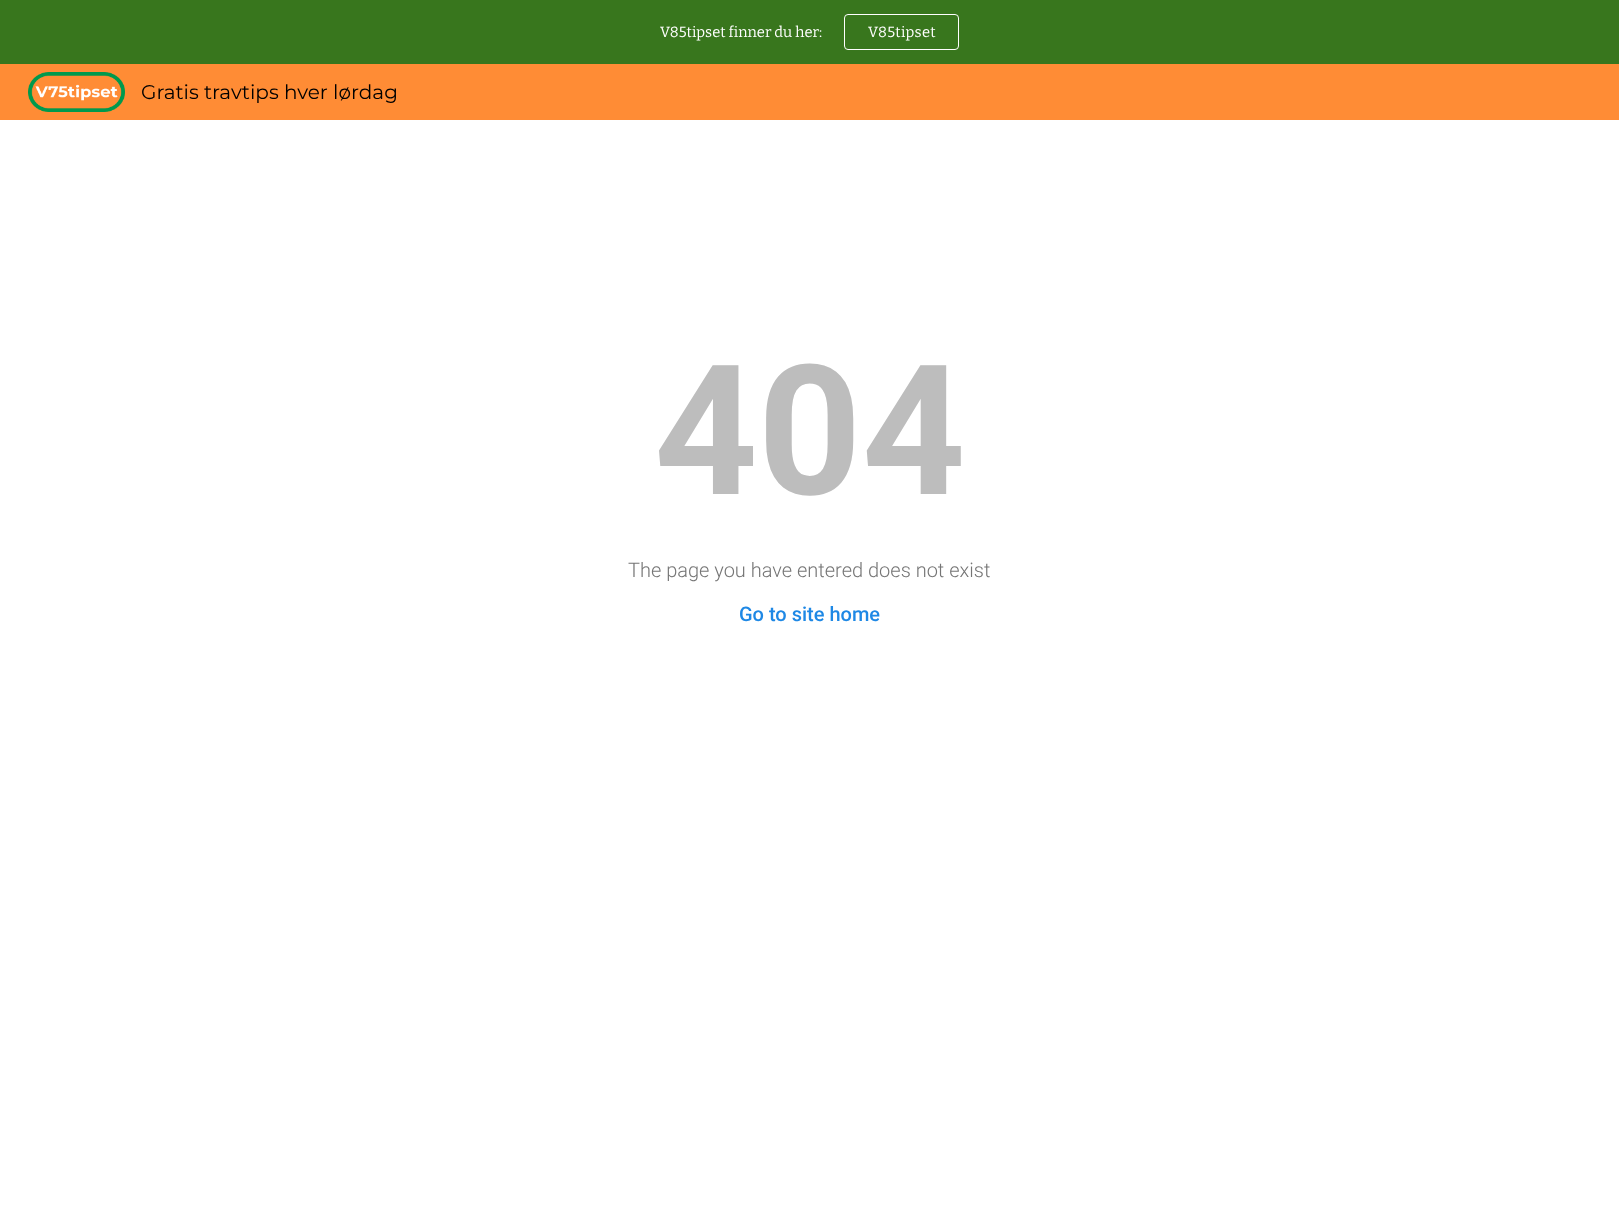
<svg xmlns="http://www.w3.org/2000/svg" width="1619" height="1214">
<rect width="100%" height="100%" fill="#fff"/>
<rect width="1619" height="64" fill="#38761d"/>
<text x="660" y="37" style="font-family:Bitter;font-size:14.75px;fill:#fff">V85tipset finner du her:</text>
<rect x="844.5" y="14.5" width="114" height="35" rx="3.5" fill="none" stroke="#fff"/>
<text x="868" y="37" style="font-family:Bitter;font-size:14.75px;letter-spacing:0.25px;fill:#fff">V85tipset</text>
<rect y="64" width="1619" height="56" fill="#ff8c35"/>
<image x="28" y="72" width="97" height="40" href="media/1.png"/>
<text x="141" y="99" style="font-family:Montserrat;font-size:20px;fill:#000">Gratis travtips hver lørdag</text>
<text x="654" y="494" style="font-family:Roboto;font-size:181px;font-weight:bold;fill:#bdbdbd">404</text>
<text x="628" y="577" style="font-family:Roboto;font-size:20px;font-weight:300;fill:#757575">The page you have entered does not exist</text>
<text x="739" y="621" style="font-family:Roboto;font-size:20px;font-weight:500;fill:#1e88e5">Go to site home</text>
</svg>
